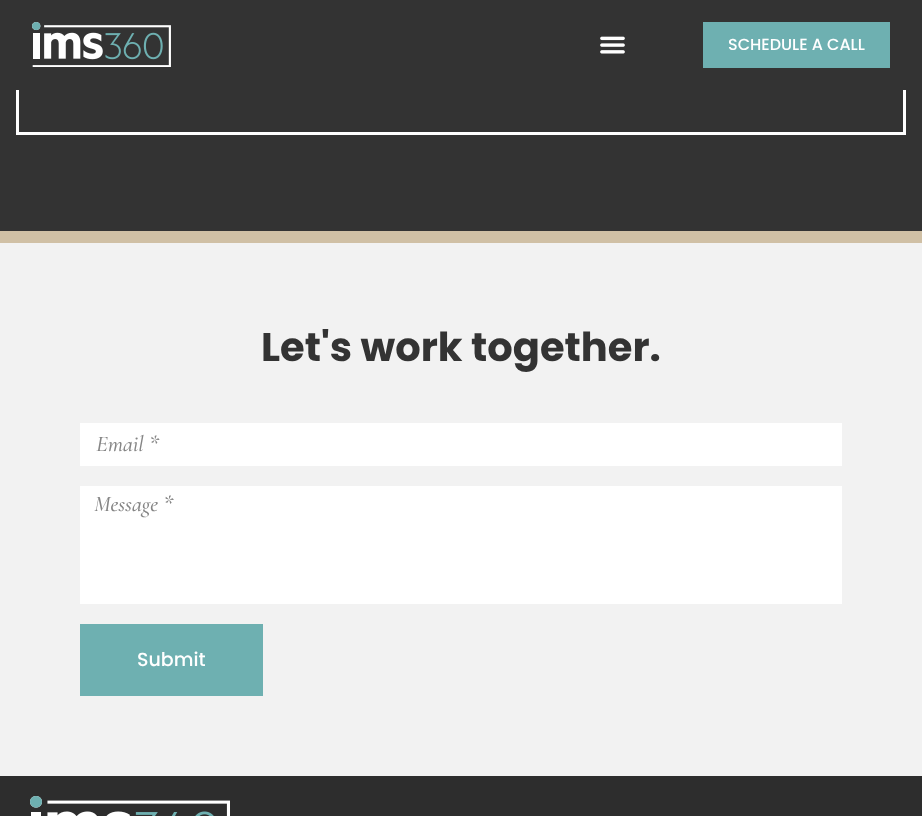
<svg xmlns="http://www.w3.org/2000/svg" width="922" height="816">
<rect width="100%" height="100%" fill="#333"/>
<rect x="17.5" y="-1.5" width="887" height="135" fill="none" stroke="#fff" stroke-width="3"/>
<rect x="16" width="890" height="90" fill="#333"/>
<image x="32" y="22" width="139" height="45" href="media/1.png"/>
<image x="600" y="36" width="25" height="18" href="media/2.png"/>
<rect x="703" y="22" width="187" height="46" fill="#6eb0b1"/>
<text x="728" y="50" style="font-family:Poppins;font-size:16px;font-weight:500;fill:#fff">SCHEDULE A CALL</text>
<rect y="243" width="922" height="533" fill="#f2f2f2"/>
<rect y="231" width="922" height="12" fill="#d0c0a5"/>
<text x="261" y="361" style="font-family:Poppins;font-size:40px;font-weight:bold;fill:#333">Let's work together.</text>
<rect x="80" y="423" width="762" height="43" fill="#fff"/>
<text x="96" y="451" style="font-family:Cormorant Garamond;font-size:22.5px;font-weight:500;font-style:italic;fill:#858585">Email *</text>
<rect x="80" y="486" width="762" height="118" fill="#fff"/>
<text x="94" y="511" style="font-family:Cormorant Garamond;font-size:22.5px;font-weight:500;font-style:italic;fill:#858585">Message *</text>
<rect x="80" y="624" width="183" height="72" fill="#6eb0b1"/>
<text x="137" y="666" style="font-family:Poppins;font-size:19px;font-weight:500;fill:#fff">Submit</text>
<rect y="776" width="922" height="40" fill="#2d2d2d"/>
<image x="30" y="796" width="200" height="20" href="media/3.png"/>
</svg>
